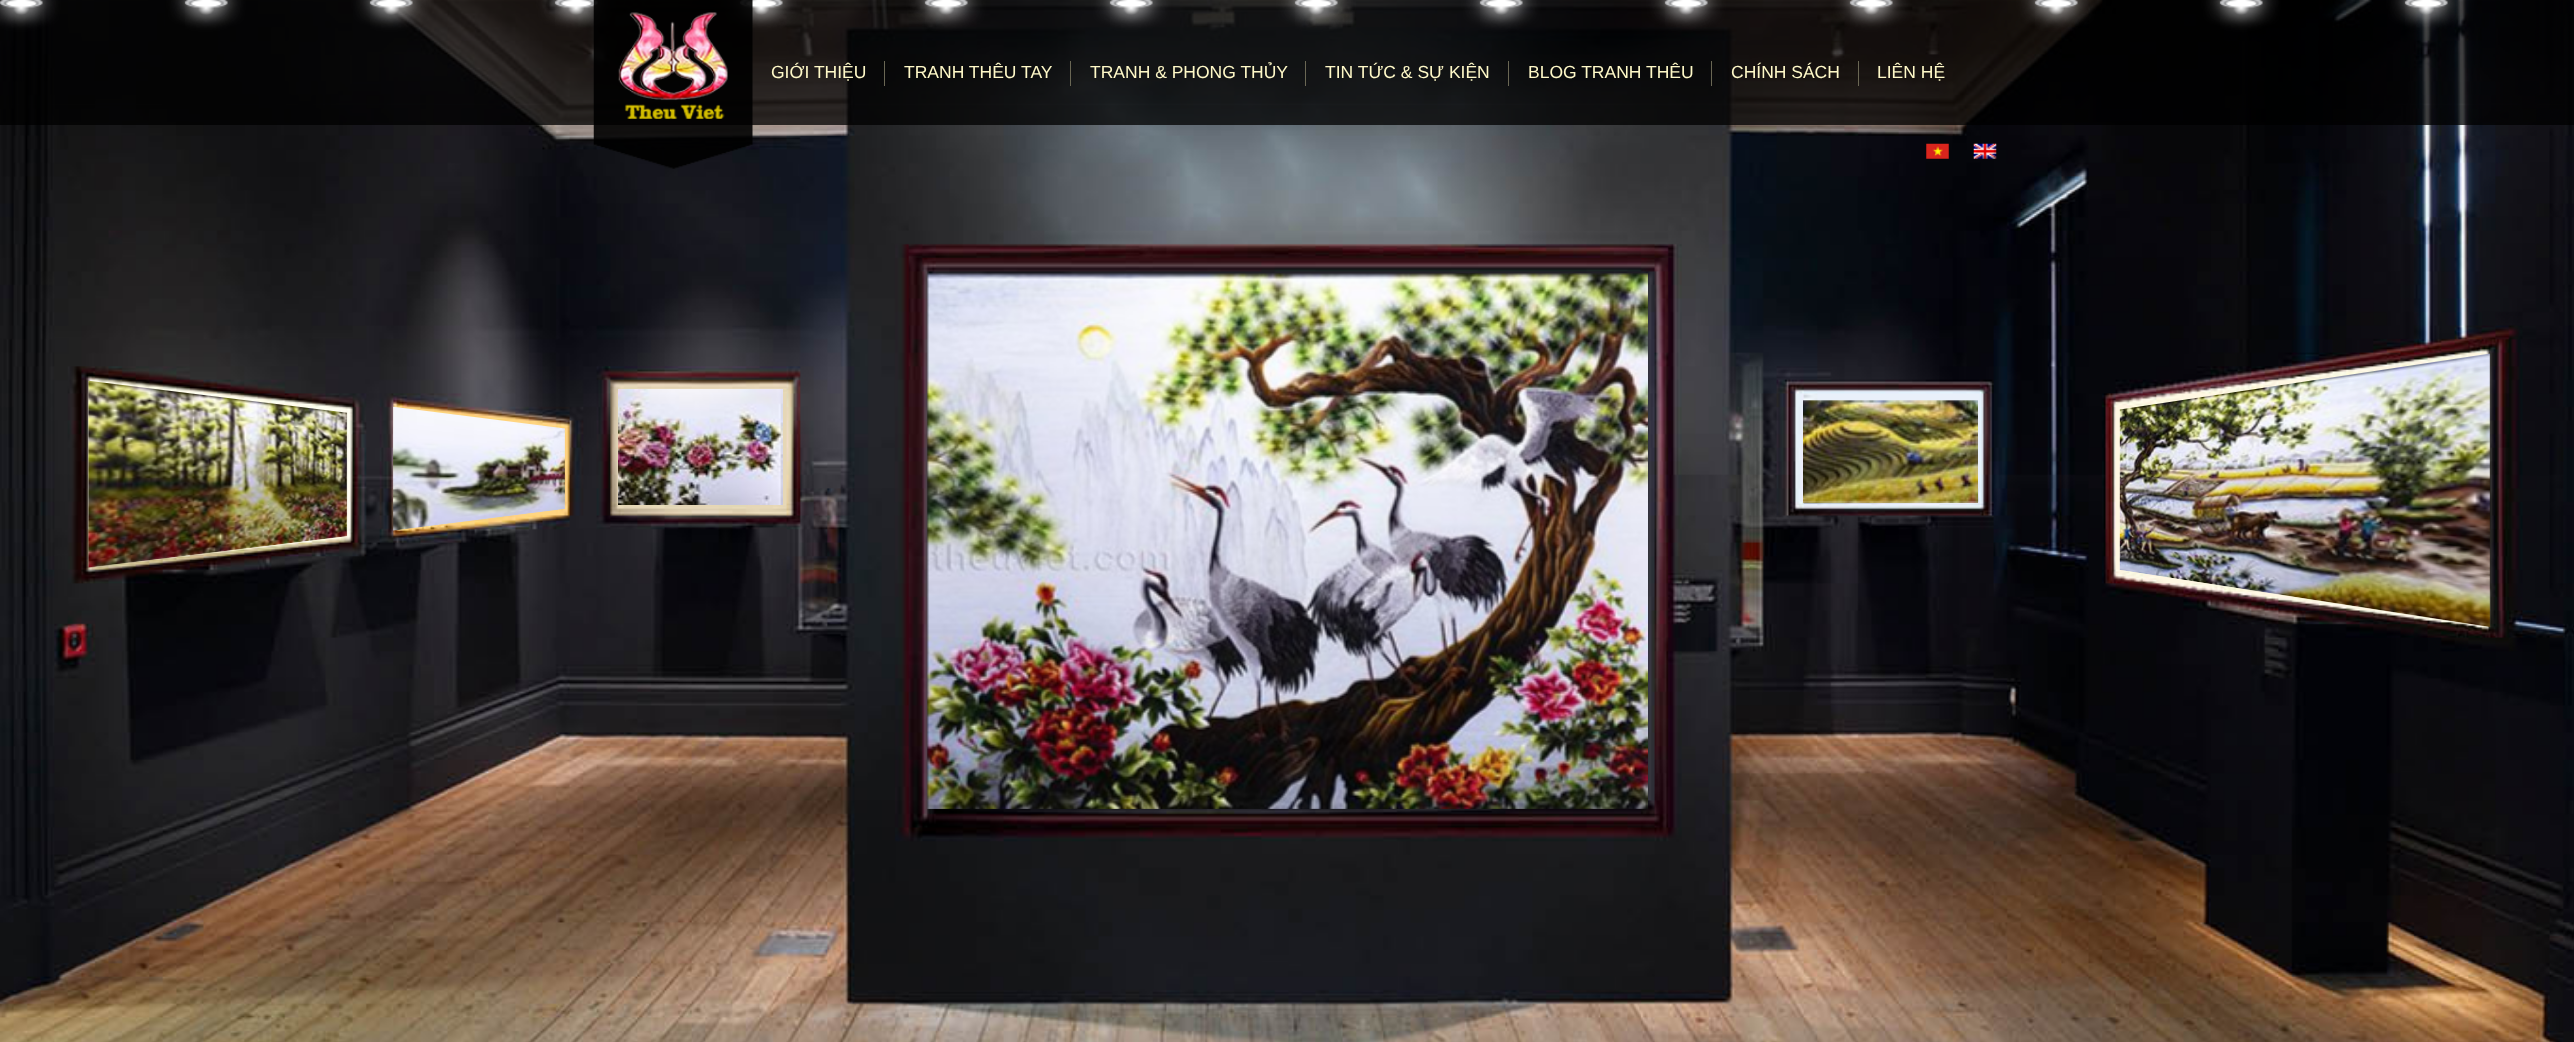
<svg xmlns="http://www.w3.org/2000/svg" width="2574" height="1042">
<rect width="100%" height="100%" fill="#fff"/>
<image x="0" y="0" width="2574" height="1042" href="media/1.png"/>
<image x="88" y="380" width="260" height="188" href="media/2.png"/>
<image x="393" y="406" width="172" height="125" href="media/3.png"/>
<image x="618" y="389" width="165" height="116" href="media/4.png"/>
<image x="927" y="273" width="721" height="536" href="media/5.png"/>
<image x="1803" y="400" width="175" height="103" href="media/6.png"/>
<image x="2119" y="353" width="372" height="274" href="media/7.png"/>
<image x="0" y="0" width="2574" height="125" href="media/8.png"/>
<image x="593" y="0" width="160" height="169" href="media/9.png"/>
<image x="618" y="12" width="110" height="107" href="media/10.png"/>
<text x="771" y="78" style="font-family:Liberation Sans;font-size:17.5px;fill:#fff9c8">GIỚI THIỆU</text>
<rect x="884" y="61" width="1" height="25" fill="#6a6754"/>
<text x="904" y="78" style="font-family:Liberation Sans;font-size:17.5px;fill:#fff9c8">TRANH THÊU TAY</text>
<rect x="1070" y="61" width="1" height="25" fill="#6a6754"/>
<text x="1090" y="78" style="font-family:Liberation Sans;font-size:17.5px;fill:#fff9c8">TRANH &amp; PHONG THỦY</text>
<rect x="1305" y="61" width="1" height="25" fill="#6a6754"/>
<text x="1325" y="78" style="font-family:Liberation Sans;font-size:17.5px;fill:#fff9c8">TIN TỨC &amp; SỰ KIỆN</text>
<rect x="1508" y="61" width="1" height="25" fill="#6a6754"/>
<text x="1528" y="78" style="font-family:Liberation Sans;font-size:17.5px;fill:#fff9c8">BLOG TRANH THÊU</text>
<rect x="1711" y="61" width="1" height="25" fill="#6a6754"/>
<text x="1731" y="78" style="font-family:Liberation Sans;font-size:17.5px;fill:#fff9c8">CHÍNH SÁCH</text>
<rect x="1858" y="61" width="1" height="25" fill="#6a6754"/>
<text x="1877" y="78" style="font-family:Liberation Sans;font-size:17.5px;fill:#fff9c8">LIÊN HỆ</text>
<image x="1926" y="143" width="23" height="16" href="media/11.png"/>
<image x="1973" y="143" width="24" height="16" href="media/12.png"/>
</svg>
